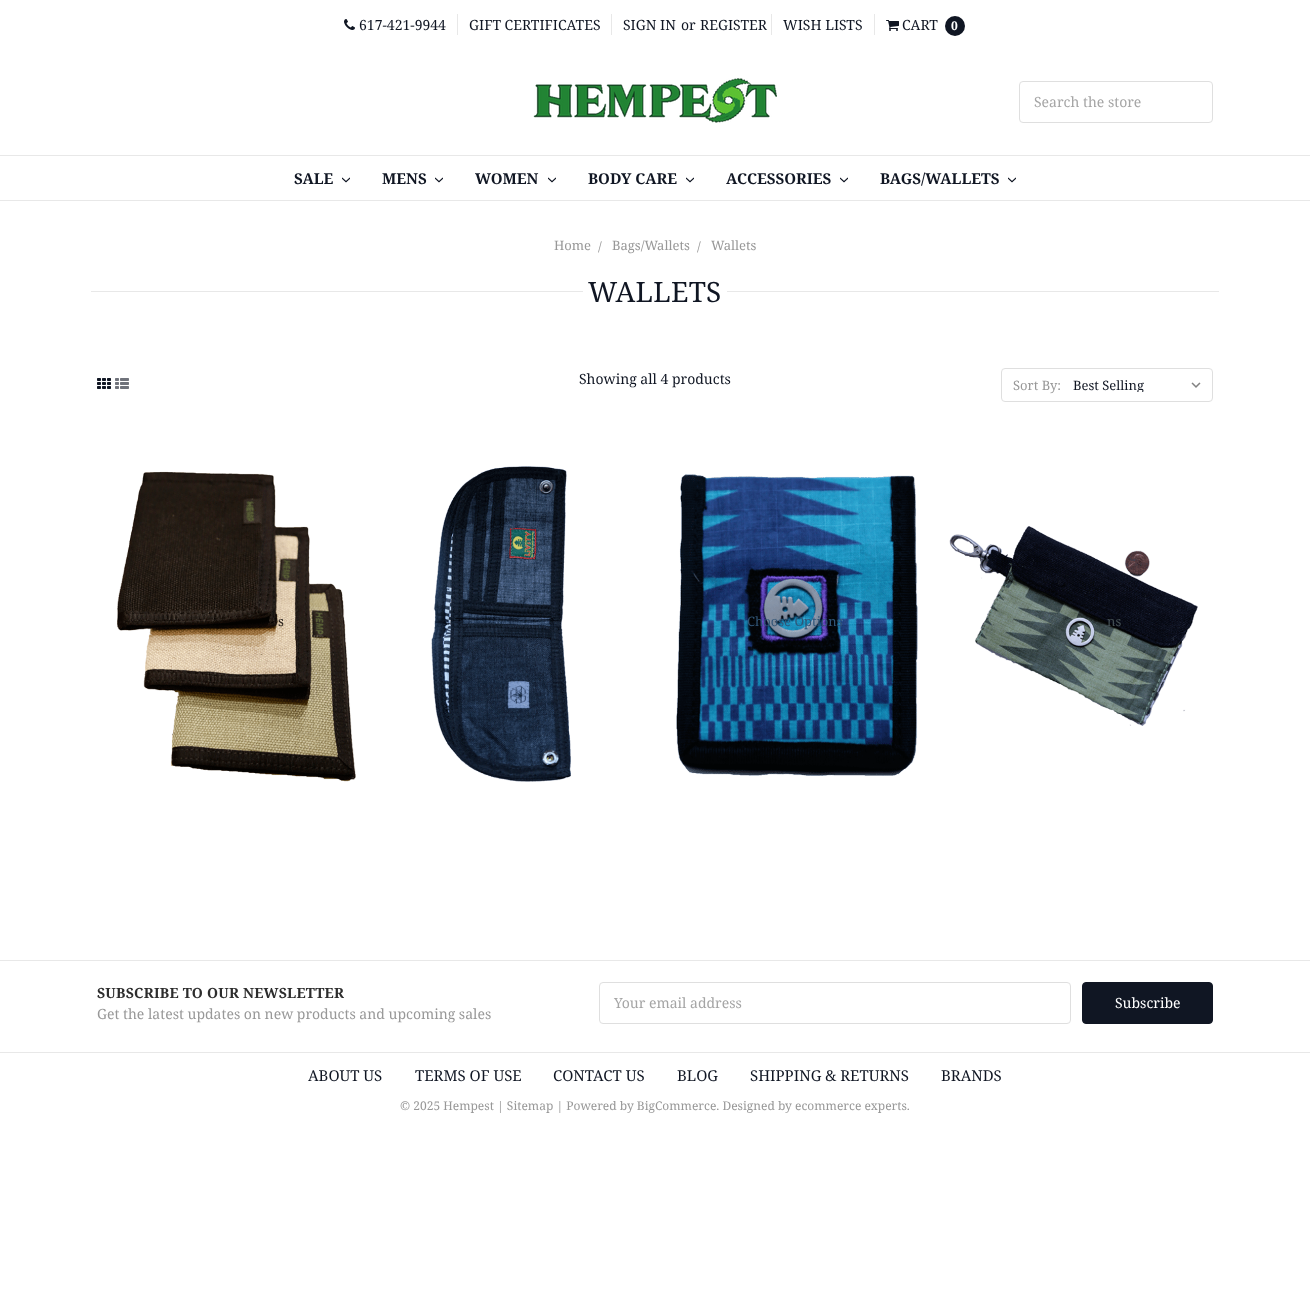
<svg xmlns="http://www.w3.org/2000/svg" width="1310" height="1304">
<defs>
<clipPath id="clip1"><rect x="1073" y="378" width="111" height="14"/></clipPath>
</defs>
<rect width="100%" height="100%" fill="#fff"/>
<rect y="200" width="1310" height="1" fill="#e8e8e8"/>
<rect x="457" y="14" width="1" height="21" fill="#e8e8e8"/>
<image x="344" y="19" width="11" height="11" href="media/1.png"/>
<text x="359" y="30" style="font-family:Noto Serif;font-size:14px;fill:#101623">617-421-9944</text>
<rect x="611" y="14" width="1" height="21" fill="#e8e8e8"/>
<text x="469" y="30" style="font-family:Noto Serif;font-size:14px;fill:#101623">GIFT CERTIFICATES</text>
<rect x="771" y="14" width="1" height="21" fill="#e8e8e8"/>
<text x="623" y="30" style="font-family:Noto Serif;font-size:14px;fill:#101623">SIGN IN</text>
<text x="681" y="30" style="font-family:Noto Serif;font-size:14px;fill:#101623">or</text>
<text x="700" y="30" style="font-family:Noto Serif;font-size:14px;fill:#101623">REGISTER</text>
<rect x="874" y="14" width="1" height="21" fill="#e8e8e8"/>
<text x="783" y="30" style="font-family:Noto Serif;font-size:14px;fill:#101623">WISH LISTS</text>
<image x="886" y="20" width="13" height="11" href="media/2.png"/>
<text x="902" y="30" style="font-family:Noto Serif;font-size:14px;fill:#101623">CART</text>
<circle cx="955" cy="26" r="10" fill="#101623"/>
<text x="951" y="30" style="font-family:Noto Serif;font-size:12px;font-weight:bold;fill:#fff">0</text>
<image x="533" y="78" width="244" height="45" href="media/3.png"/>
<rect x="1019.5" y="81.5" width="193" height="41" rx="3.5" fill="none" stroke="#dfdfdf"/>
<text x="1034" y="107" style="font-family:Noto Serif;font-size:14px;fill:#a5a5a5">Search the store</text>
<rect y="155" width="1310" height="1" fill="#e8e8e8"/>
<text x="294" y="184" style="font-family:Noto Serif;font-size:15px;font-weight:bold;fill:#101623">SALE</text>
<image x="342" y="177" width="8" height="6" href="media/4.png"/>
<text x="382" y="184" style="font-family:Noto Serif;font-size:15px;font-weight:bold;fill:#101623">MENS</text>
<image x="435" y="177" width="8" height="6" href="media/4.png"/>
<text x="475" y="184" style="font-family:Noto Serif;font-size:15px;font-weight:bold;fill:#101623">WOMEN</text>
<image x="548" y="177" width="8" height="6" href="media/4.png"/>
<text x="588" y="184" style="font-family:Noto Serif;font-size:15px;font-weight:bold;fill:#101623">BODY CARE</text>
<image x="686" y="177" width="8" height="6" href="media/4.png"/>
<text x="726" y="184" style="font-family:Noto Serif;font-size:15px;font-weight:bold;fill:#101623">ACCESSORIES</text>
<image x="840" y="177" width="8" height="6" href="media/4.png"/>
<text x="880" y="184" style="font-family:Noto Serif;font-size:15px;font-weight:bold;fill:#101623">BAGS/WALLETS</text>
<image x="1008" y="177" width="8" height="6" href="media/4.png"/>
<text x="554" y="250" style="font-family:Noto Serif;font-size:13px;fill:#989898">Home</text>
<text x="598" y="251" style="font-family:Noto Serif;font-size:13px;fill:#989898">/</text>
<text x="612" y="250" style="font-family:Noto Serif;font-size:13px;fill:#989898">Bags/Wallets</text>
<text x="697" y="251" style="font-family:Noto Serif;font-size:13px;fill:#989898">/</text>
<text x="711" y="250" style="font-family:Noto Serif;font-size:13px;fill:#989898">Wallets</text>
<rect x="91" y="291" width="492" height="1" fill="#e8e8e8"/>
<text x="588" y="302" style="font-family:Noto Serif;font-size:28px;letter-spacing:0.25px;fill:#101623">WALLETS</text>
<rect x="727" y="291" width="492" height="1" fill="#e8e8e8"/>
<image x="97" y="378" width="14" height="11" href="media/5.png"/>
<image x="115" y="378" width="14" height="11" href="media/6.png"/>
<text x="579" y="384" style="font-family:Noto Serif;font-size:14px;fill:#101623">Showing all 4 products</text>
<rect x="1001.5" y="368.5" width="211" height="33" rx="3.5" fill="none" stroke="#dfdfdf"/>
<text x="1013" y="390" style="font-family:Noto Serif;font-size:13px;fill:#989898">Sort By:</text>
<image x="1191" y="382" width="10" height="6" href="media/7.png"/>
<g clip-path="url(#clip1)">
<text x="1073" y="390" style="font-family:Noto Serif;font-size:13px;fill:#101623">Best Selling</text>
</g>
<image x="117" y="471" width="239" height="311" href="media/8.png"/>
<text x="278" y="626" style="font-family:Noto Serif;font-size:13px;fill:#221b15">s</text>
<image x="431" y="466" width="140" height="316" href="media/9.png"/>
<image x="676" y="474" width="242" height="302" href="media/10.png"/>
<text x="747" y="626" style="font-family:Noto Serif;font-size:13px;fill:#315678">Choose Options</text>
<image x="949" y="526" width="249" height="200" href="media/11.png"/>
<text x="1107" y="626" style="font-family:Noto Serif;font-size:13px;fill:#444f53">ns</text>
<rect y="960" width="1310" height="1" fill="#e8e8e8"/>
<text x="97" y="998" style="font-family:Noto Serif;font-size:14px;font-weight:bold;letter-spacing:0.25px;fill:#2d2d2d">SUBSCRIBE TO OUR NEWSLETTER</text>
<text x="97" y="1019" style="font-family:Noto Serif;font-size:14px;fill:#989898">Get the latest updates on new products and upcoming sales</text>
<rect x="599.5" y="982.5" width="471" height="41" rx="3.5" fill="none" stroke="#dfdfdf"/>
<text x="614" y="1008" style="font-family:Noto Serif;font-size:14px;fill:#a5a5a5">Your email address</text>
<rect x="1082.5" y="982.5" width="130" height="41" rx="3.5" fill="#101623" stroke="#101623"/>
<text x="1115" y="1008" style="font-family:Noto Serif;font-size:14px;fill:#fff">Subscribe</text>
<rect y="1052" width="1310" height="1" fill="#e8e8e8"/>
<text x="308" y="1081" style="font-family:Noto Serif;font-size:15px;fill:#101623">ABOUT US</text>
<text x="415" y="1081" style="font-family:Noto Serif;font-size:15px;fill:#101623">TERMS OF USE</text>
<text x="553" y="1081" style="font-family:Noto Serif;font-size:15px;fill:#101623">CONTACT US</text>
<text x="677" y="1081" style="font-family:Noto Serif;font-size:15px;fill:#101623">BLOG</text>
<text x="750" y="1081" style="font-family:Noto Serif;font-size:15px;fill:#101623">SHIPPING &amp; RETURNS</text>
<text x="941" y="1081" style="font-family:Noto Serif;font-size:15px;fill:#101623">BRANDS</text>
<text x="400" y="1110" style="font-family:Noto Serif;font-size:12px;fill:#989898">© 2025 Hempest | Sitemap | Powered by BigCommerce. Designed by ecommerce experts.</text>
</svg>
